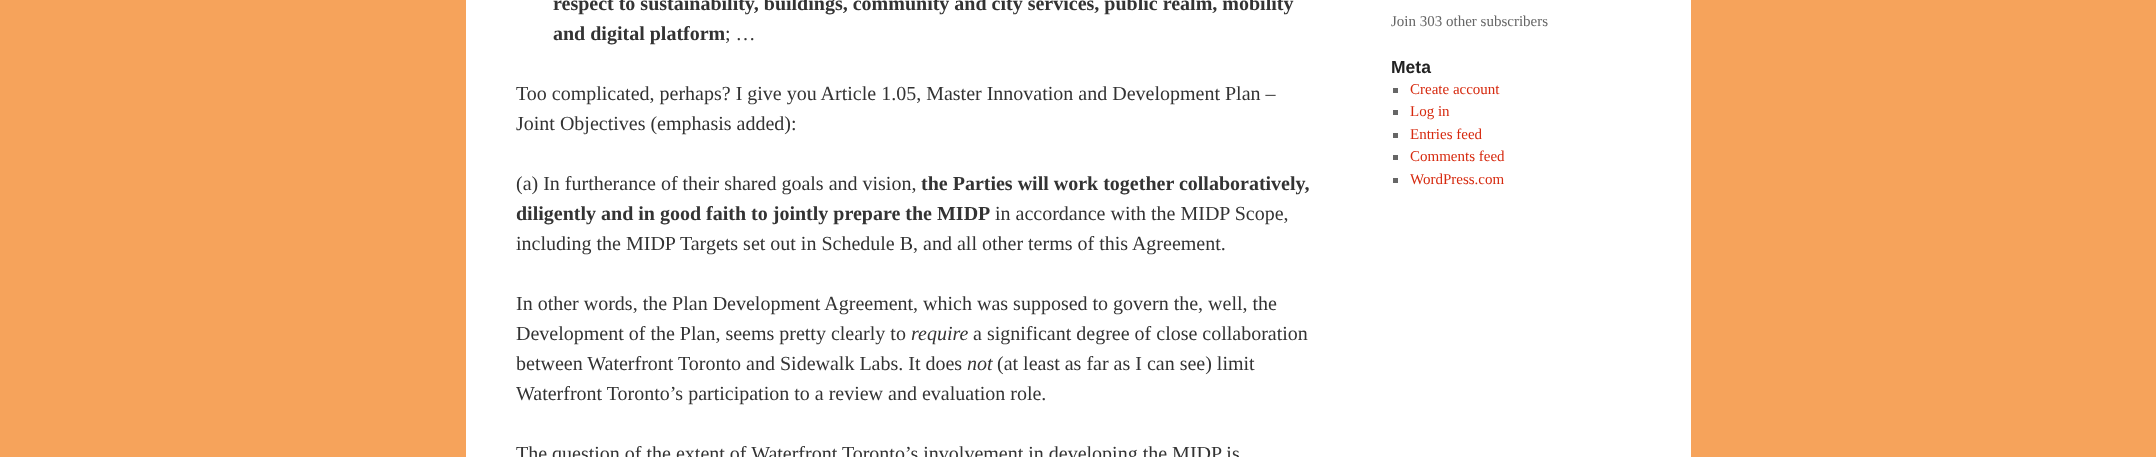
<svg xmlns="http://www.w3.org/2000/svg" width="2156" height="457">
<rect width="100%" height="100%" fill="#f6a35b"/>
<rect x="466" width="1225" height="457" fill="#fff"/>
<text x="553" y="10" style="font-family:Liberation Serif;font-size:20px;font-weight:bold;fill:#333">respect to sustainability, buildings, community and city services, public realm, mobility</text>
<text x="553" y="40" style="font-family:Liberation Serif;font-size:20px;font-weight:bold;fill:#333">and digital platform</text>
<text x="725" y="40" style="font-family:Liberation Serif;font-size:20px;fill:#333">; …</text>
<text x="516" y="100" style="font-family:Liberation Serif;font-size:20px;fill:#333">Too complicated, perhaps? I give you Article 1.05, Master Innovation and Development Plan –</text>
<text x="516" y="130" style="font-family:Liberation Serif;font-size:20px;fill:#333">Joint Objectives (emphasis added):</text>
<text x="516" y="190" style="font-family:Liberation Serif;font-size:20px;fill:#333">(a) In furtherance of their shared goals and vision,</text>
<text x="921" y="190" style="font-family:Liberation Serif;font-size:20px;font-weight:bold;fill:#333">the Parties will work together collaboratively,</text>
<text x="516" y="220" style="font-family:Liberation Serif;font-size:20px;font-weight:bold;fill:#333">diligently and in good faith to jointly prepare the MIDP</text>
<text x="995" y="220" style="font-family:Liberation Serif;font-size:20px;fill:#333">in accordance with the MIDP Scope,</text>
<text x="516" y="250" style="font-family:Liberation Serif;font-size:20px;fill:#333">including the MIDP Targets set out in Schedule B, and all other terms of this Agreement.</text>
<text x="516" y="310" style="font-family:Liberation Serif;font-size:20px;fill:#333">In other words, the Plan Development Agreement, which was supposed to govern the, well, the</text>
<text x="516" y="340" style="font-family:Liberation Serif;font-size:20px;fill:#333">Development of the Plan, seems pretty clearly to</text>
<text x="911" y="340" style="font-family:Liberation Serif;font-size:20px;font-style:italic;fill:#333">require</text>
<text x="973" y="340" style="font-family:Liberation Serif;font-size:20px;fill:#333">a significant degree of close collaboration</text>
<text x="516" y="370" style="font-family:Liberation Serif;font-size:20px;fill:#333">between Waterfront Toronto and Sidewalk Labs. It does</text>
<text x="967" y="370" style="font-family:Liberation Serif;font-size:20px;font-style:italic;fill:#333">not</text>
<text x="997" y="370" style="font-family:Liberation Serif;font-size:20px;fill:#333">(at least as far as I can see) limit</text>
<text x="516" y="400" style="font-family:Liberation Serif;font-size:20px;fill:#333">Waterfront Toronto’s participation to a review and evaluation role.</text>
<text x="516" y="460" style="font-family:Liberation Serif;font-size:20px;fill:#333">The question of the extent of Waterfront Toronto’s involvement in developing the MIDP is</text>
<text x="1391" y="26" style="font-family:Liberation Serif;font-size:15px;fill:#666">Join 303 other subscribers</text>
<text x="1391" y="73" style="font-family:Liberation Sans;font-size:17.5px;font-weight:bold;fill:#222">Meta</text>
<rect x="1393" y="88" width="5" height="5" fill="#666"/>
<text x="1410" y="94" style="font-family:Liberation Serif;font-size:15px;fill:#d6290e">Create account</text>
<rect x="1393" y="110" width="5" height="5" fill="#666"/>
<text x="1410" y="116" style="font-family:Liberation Serif;font-size:15px;fill:#d6290e">Log in</text>
<rect x="1393" y="133" width="5" height="5" fill="#666"/>
<text x="1410" y="139" style="font-family:Liberation Serif;font-size:15px;fill:#d6290e">Entries feed</text>
<rect x="1393" y="155" width="5" height="5" fill="#666"/>
<text x="1410" y="161" style="font-family:Liberation Serif;font-size:15px;fill:#d6290e">Comments feed</text>
<rect x="1393" y="178" width="5" height="5" fill="#666"/>
<text x="1410" y="184" style="font-family:Liberation Serif;font-size:15px;fill:#d6290e">WordPress.com</text>
</svg>
